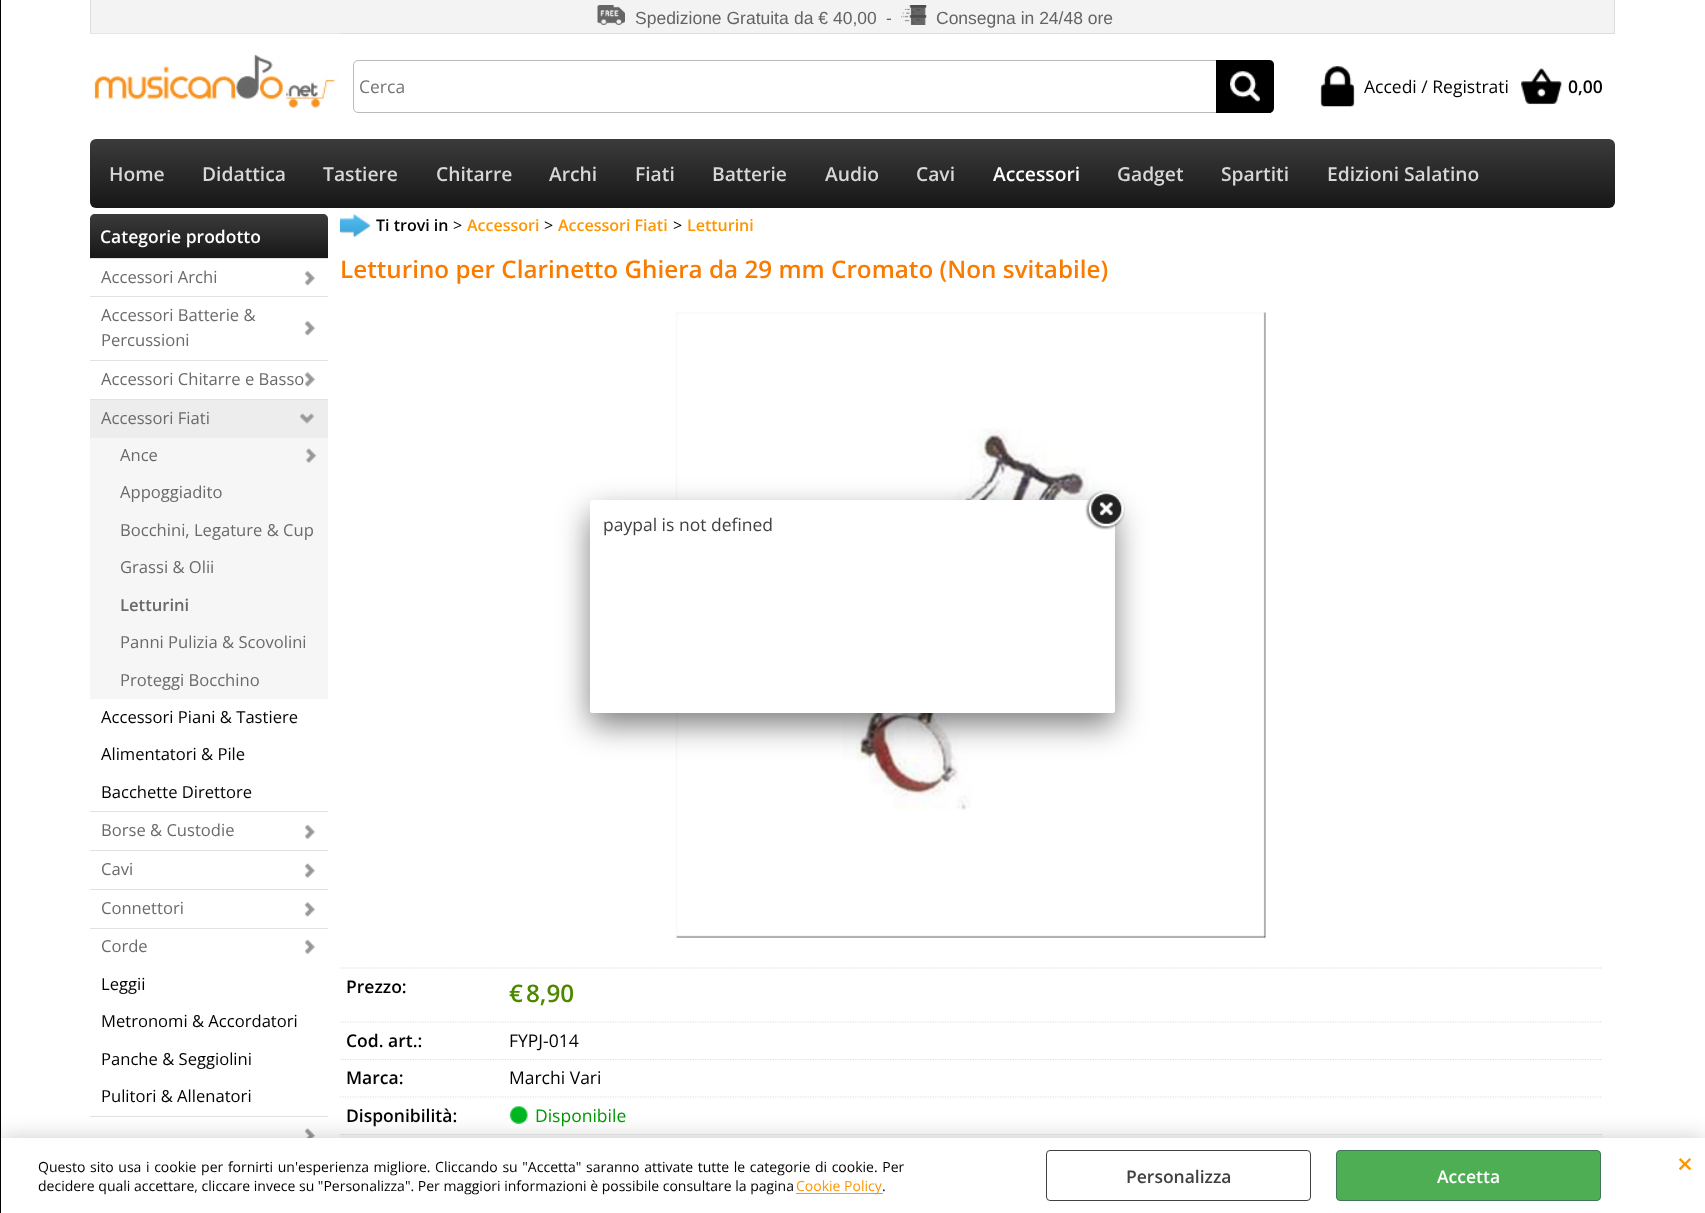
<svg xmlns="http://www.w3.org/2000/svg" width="1705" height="1213">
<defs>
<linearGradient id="g1" gradientUnits="userSpaceOnUse" x1="853" y1="139" x2="853" y2="208"><stop offset="0" stop-color="#3b3b3b"/><stop offset="1" stop-color="#171717"/></linearGradient>
<linearGradient id="g2" gradientUnits="userSpaceOnUse" x1="209" y1="214" x2="209" y2="258"><stop offset="0" stop-color="#3b3b3b"/><stop offset="1" stop-color="#171717"/></linearGradient>
</defs>
<rect width="100%" height="100%" fill="#fff"/>
<rect x="90" y="1116" width="238" height="1" fill="#e2e2e2"/>
<image x="305" y="1128" width="11" height="10" href="media/13.png"/>
<image x="509" y="1106" width="19" height="18" href="media/16.png"/>
<rect x="340" y="1134" width="1263" height="4" fill="#fbfbfb"/>
<path d="M340 1134.5h162.5" fill="none" stroke="#ddd" stroke-width="1.2" stroke-dasharray="1.25 1.25"/>
<path d="M502.5 1134.5h1100" fill="none" stroke="#ddd" stroke-width="1.2" stroke-dasharray="1.25 1.25"/>
<rect y="1138" width="1705" height="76" fill="#00000033" filter="blur(11px)"/>
<rect width="1" height="1213" fill="#000"/>
<rect x="91" width="1523" height="33" fill="#f3f3f3"/>
<rect x="1614" width="1" height="34" fill="#ddd"/>
<rect x="90" y="33" width="1525" height="1" fill="#ddd"/>
<rect x="90" width="1" height="34" fill="#ddd"/>
<image x="597" y="5" width="28" height="20" href="media/1.png"/>
<text x="635" y="24" style="font-family:Liberation Sans;font-size:17.5px;fill:#646464">Spedizione Gratuita</text>
<text x="794" y="24" style="font-family:Liberation Sans;font-size:17.5px;fill:#646464">da € 40,00</text>
<text x="886" y="24" style="font-family:Liberation Sans;font-size:17.5px;fill:#646464">-</text>
<image x="901" y="5" width="26" height="20" href="media/2.png"/>
<text x="936" y="24" style="font-family:Liberation Sans;font-size:17.5px;fill:#646464">Consegna in 24/48 ore</text>
<image x="90" y="33" width="250" height="75" href="media/3.png"/>
<rect x="353.5" y="60.5" width="920" height="52" rx="4.5" fill="none" stroke="#bbb"/>
<text x="359" y="93" style="font-family:Open Sans;font-size:17.5px;fill:#757575">Cerca</text>
<path d="M1216 60h53c3 0 5 2 5 5v43c0 3-2 5-5 5h-53z" fill="#000"/>
<image x="1230" y="71" width="30" height="31" href="media/4.png"/>
<image x="1320" y="66" width="35" height="41" href="media/5.png"/>
<text x="1364" y="93" style="font-family:Open Sans;font-size:17.5px;fill:#000">Accedi / Registrati</text>
<image x="1521" y="68" width="41" height="37" href="media/6.png"/>
<text x="1568" y="93" style="font-family:Open Sans;font-size:17.5px;font-weight:600;fill:#000">0,00</text>
<rect x="90" y="139" width="1525" height="69" rx="6" fill="url(#g1)"/>
<text x="109" y="181" style="font-family:Open Sans;font-size:19.25px;font-weight:600;fill:#d7d7d7">Home</text>
<text x="202" y="181" style="font-family:Open Sans;font-size:19.25px;font-weight:600;fill:#d7d7d7">Didattica</text>
<text x="323" y="181" style="font-family:Open Sans;font-size:19.25px;font-weight:600;fill:#d7d7d7">Tastiere</text>
<text x="436" y="181" style="font-family:Open Sans;font-size:19.25px;font-weight:600;fill:#d7d7d7">Chitarre</text>
<text x="549" y="181" style="font-family:Open Sans;font-size:19.25px;font-weight:600;fill:#d7d7d7">Archi</text>
<text x="635" y="181" style="font-family:Open Sans;font-size:19.25px;font-weight:600;fill:#d7d7d7">Fiati</text>
<text x="712" y="181" style="font-family:Open Sans;font-size:19.25px;font-weight:600;fill:#d7d7d7">Batterie</text>
<text x="825" y="181" style="font-family:Open Sans;font-size:19.25px;font-weight:600;fill:#d7d7d7">Audio</text>
<text x="916" y="181" style="font-family:Open Sans;font-size:19.25px;font-weight:600;fill:#d7d7d7">Cavi</text>
<text x="993" y="181" style="font-family:Open Sans;font-size:19.25px;font-weight:600;fill:#fff">Accessori</text>
<text x="1117" y="181" style="font-family:Open Sans;font-size:19.25px;font-weight:600;fill:#d7d7d7">Gadget</text>
<text x="1221" y="181" style="font-family:Open Sans;font-size:19.25px;font-weight:600;fill:#d7d7d7">Spartiti</text>
<text x="1327" y="181" style="font-family:Open Sans;font-size:19.25px;font-weight:600;fill:#d7d7d7">Edizioni Salatino</text>
<path d="M95 214h228c3 0 5 2 5 5v39h-238v-39c0-3 2-5 5-5z" fill="url(#g2)"/>
<text x="100" y="243" style="font-family:Open Sans;font-size:17.5px;font-weight:600;fill:#fff">Categorie prodotto</text>
<rect x="90" y="258" width="238" height="1" fill="#e2e2e2"/>
<image x="304" y="271" width="12" height="15" href="media/7.png"/>
<text x="101" y="283" style="font-family:Open Sans;font-size:16.6px;fill:#6b6969">Accessori Archi</text>
<rect x="90" y="296" width="238" height="1" fill="#e2e2e2"/>
<image x="304" y="321" width="12" height="15" href="media/7.png"/>
<text x="101" y="321" style="font-family:Open Sans;font-size:16.6px;fill:#6b6969">Accessori Batterie &amp;</text>
<text x="101" y="346" style="font-family:Open Sans;font-size:16.6px;fill:#6b6969">Percussioni</text>
<rect x="90" y="360" width="238" height="1" fill="#e2e2e2"/>
<image x="304" y="372" width="12" height="15" href="media/8.png"/>
<text x="101" y="385" style="font-family:Open Sans;font-size:16.6px;fill:#6b6969">Accessori Chitarre e Basso</text>
<rect x="90" y="399" width="238" height="1" fill="#e2e2e2"/>
<rect x="90" y="400" width="238" height="38" fill="#ededed"/>
<image x="300" y="413" width="14" height="11" href="media/9.png"/>
<text x="101" y="424" style="font-family:Open Sans;font-size:16.6px;fill:#6b6969">Accessori Fiati</text>
<rect x="90" y="438" width="238" height="261" fill="#f6f6f6"/>
<image x="306" y="448" width="11" height="15" href="media/10.png"/>
<text x="120" y="461" style="font-family:Open Sans;font-size:16.6px;fill:#6b6969">Ance</text>
<text x="120" y="498" style="font-family:Open Sans;font-size:16.6px;fill:#6b6969">Appoggiadito</text>
<text x="120" y="536" style="font-family:Open Sans;font-size:16.6px;fill:#6b6969">Bocchini, Legature &amp; Cup</text>
<text x="120" y="573" style="font-family:Open Sans;font-size:16.6px;fill:#6b6969">Grassi &amp; Olii</text>
<text x="120" y="611" style="font-family:Open Sans;font-size:16.6px;font-weight:600;fill:#6b6969">Letturini</text>
<text x="120" y="648" style="font-family:Open Sans;font-size:16.6px;fill:#6b6969">Panni Pulizia &amp; Scovolini</text>
<text x="120" y="686" style="font-family:Open Sans;font-size:16.6px;fill:#6b6969">Proteggi Bocchino</text>
<text x="101" y="723" style="font-family:Open Sans;font-size:16.6px;fill:#000">Accessori Piani &amp; Tastiere</text>
<text x="101" y="760" style="font-family:Open Sans;font-size:16.6px;fill:#000">Alimentatori &amp; Pile</text>
<text x="101" y="798" style="font-family:Open Sans;font-size:16.6px;fill:#000">Bacchette Direttore</text>
<rect x="90" y="811" width="238" height="1" fill="#e2e2e2"/>
<image x="305" y="824" width="11" height="15" href="media/11.png"/>
<text x="101" y="836" style="font-family:Open Sans;font-size:16.6px;fill:#6b6969">Borse &amp; Custodie</text>
<rect x="90" y="850" width="238" height="1" fill="#e2e2e2"/>
<image x="305" y="863" width="11" height="15" href="media/12.png"/>
<text x="101" y="875" style="font-family:Open Sans;font-size:16.6px;fill:#6b6969">Cavi</text>
<rect x="90" y="889" width="238" height="1" fill="#e2e2e2"/>
<image x="304" y="902" width="12" height="15" href="media/8.png"/>
<text x="101" y="914" style="font-family:Open Sans;font-size:16.6px;fill:#6b6969">Connettori</text>
<rect x="90" y="928" width="238" height="1" fill="#e2e2e2"/>
<image x="305" y="939" width="11" height="15" href="media/11.png"/>
<text x="101" y="952" style="font-family:Open Sans;font-size:16.6px;fill:#6b6969">Corde</text>
<text x="101" y="990" style="font-family:Open Sans;font-size:16.6px;fill:#000">Leggii</text>
<text x="101" y="1027" style="font-family:Open Sans;font-size:16.6px;fill:#000">Metronomi &amp; Accordatori</text>
<text x="101" y="1065" style="font-family:Open Sans;font-size:16.6px;fill:#000">Panche &amp; Seggiolini</text>
<text x="101" y="1102" style="font-family:Open Sans;font-size:16.6px;fill:#000">Pulitori &amp; Allenatori</text>
<image x="340" y="214" width="30" height="23" href="media/14.png"/>
<text x="376" y="231" style="font-family:Open Sans;font-size:16px;font-weight:600;fill:#000">Ti trovi in</text>
<text x="453" y="231" style="font-family:Open Sans;font-size:16px;fill:#000">&gt;</text>
<text x="467" y="231" style="font-family:Open Sans;font-size:16px;font-weight:600;fill:#ff9600">Accessori</text>
<text x="544" y="231" style="font-family:Open Sans;font-size:16px;fill:#000">&gt;</text>
<text x="558" y="231" style="font-family:Open Sans;font-size:16px;font-weight:600;fill:#ff9600">Accessori Fiati</text>
<text x="673" y="231" style="font-family:Open Sans;font-size:16px;fill:#000">&gt;</text>
<text x="687" y="231" style="font-family:Open Sans;font-size:16px;font-weight:600;fill:#ff9600">Letturini</text>
<text x="340" y="278" style="font-family:Open Sans;font-size:24.25px;font-weight:600;fill:#f97c00">Letturino per Clarinetto Ghiera da 29 mm Cromato (Non svitabile)</text>
<image x="676" y="312" width="590" height="626" href="media/15.png"/>
<path d="M340 968h162.5" fill="none" stroke="#ddd" stroke-width="1.2" stroke-dasharray="1.25 1.25"/>
<text x="346" y="993" style="font-family:Open Sans;font-size:17.5px;font-weight:600;fill:#000">Prezzo:</text>
<path d="M502.5 968h1100" fill="none" stroke="#ddd" stroke-width="1.2" stroke-dasharray="1.25 1.25"/>
<text x="509" y="1002" style="font-family:Open Sans;font-size:24.25px;font-weight:600;fill:#4d8800">€</text>
<text x="526" y="1002" style="font-family:Open Sans;font-size:24.25px;font-weight:600;fill:#4d8800">8,90</text>
<path d="M340 1022h162.5" fill="none" stroke="#ddd" stroke-width="1.2" stroke-dasharray="1.25 1.25"/>
<text x="346" y="1047" style="font-family:Open Sans;font-size:17.5px;font-weight:600;fill:#000">Cod. art.:</text>
<path d="M502.5 1022h1100" fill="none" stroke="#ddd" stroke-width="1.2" stroke-dasharray="1.25 1.25"/>
<text x="509" y="1047" style="font-family:Open Sans;font-size:17.5px;fill:#000">FYPJ-014</text>
<path d="M340 1059.5h162.5" fill="none" stroke="#ddd" stroke-width="1.2" stroke-dasharray="1.25 1.25"/>
<text x="346" y="1084" style="font-family:Open Sans;font-size:17.5px;font-weight:600;fill:#000">Marca:</text>
<path d="M502.5 1059.5h1100" fill="none" stroke="#ddd" stroke-width="1.2" stroke-dasharray="1.25 1.25"/>
<text x="509" y="1084" style="font-family:Open Sans;font-size:17.5px;fill:#000">Marchi Vari</text>
<path d="M340 1097h162.5" fill="none" stroke="#ddd" stroke-width="1.2" stroke-dasharray="1.25 1.25"/>
<text x="346" y="1122" style="font-family:Open Sans;font-size:17.5px;font-weight:600;fill:#000">Disponibilità:</text>
<path d="M502.5 1097h1100" fill="none" stroke="#ddd" stroke-width="1.2" stroke-dasharray="1.25 1.25"/>
<text x="535" y="1122" style="font-family:Open Sans;font-size:17.5px;fill:#090">Disponibile</text>
<rect x="590" y="513" width="525" height="212" rx="2.5" fill="#00000080" filter="blur(15.5px)"/>
<rect x="590" y="500" width="525" height="213" rx="2.5" fill="#fff"/>
<text x="603" y="531" style="font-family:Open Sans;font-size:17.5px;fill:#424141">paypal is not defined</text>
<image x="1085" y="490" width="40" height="40" href="media/17.png"/>
<rect x="1" y="1138" width="1704" height="75" fill="#fff"/>
<text x="38" y="1172" word-spacing="1" style="font-family:Open Sans;font-size:14px;fill:#000">Questo sito usa i cookie per fornirti un'esperienza migliore. Cliccando su "Accetta" saranno attivate tutte le categorie di cookie. Per</text>
<text x="38" y="1191" style="font-family:Open Sans;font-size:14px;fill:#000">decidere quali accettare, cliccare invece su "Personalizza". Per maggiori informazioni è possibile consultare la pagina</text>
<rect x="796" y="1193" width="87" height="1" fill="#ff9600"/>
<text x="796" y="1191" style="font-family:Open Sans;font-size:14px;fill:#ff9600">Cookie Policy</text>
<text x="882" y="1191" style="font-family:Open Sans;font-size:14px;fill:#000">.</text>
<rect x="1046.5" y="1150.5" width="264" height="50" rx="3.5" fill="none" stroke="#424141"/>
<text x="1126" y="1183" style="font-family:Open Sans;font-size:17.5px;font-weight:600;fill:#424141">Personalizza</text>
<rect x="1336.5" y="1150.5" width="264" height="50" rx="3.5" fill="#4eae54" stroke="#3f7755"/>
<text x="1437" y="1183" style="font-family:Open Sans;font-size:17.5px;font-weight:600;fill:#fff">Accetta</text>
<text x="1677" y="1174" style="font-family:Open Sans;font-size:28px;font-weight:600;fill:#ff9600">×</text>
</svg>
